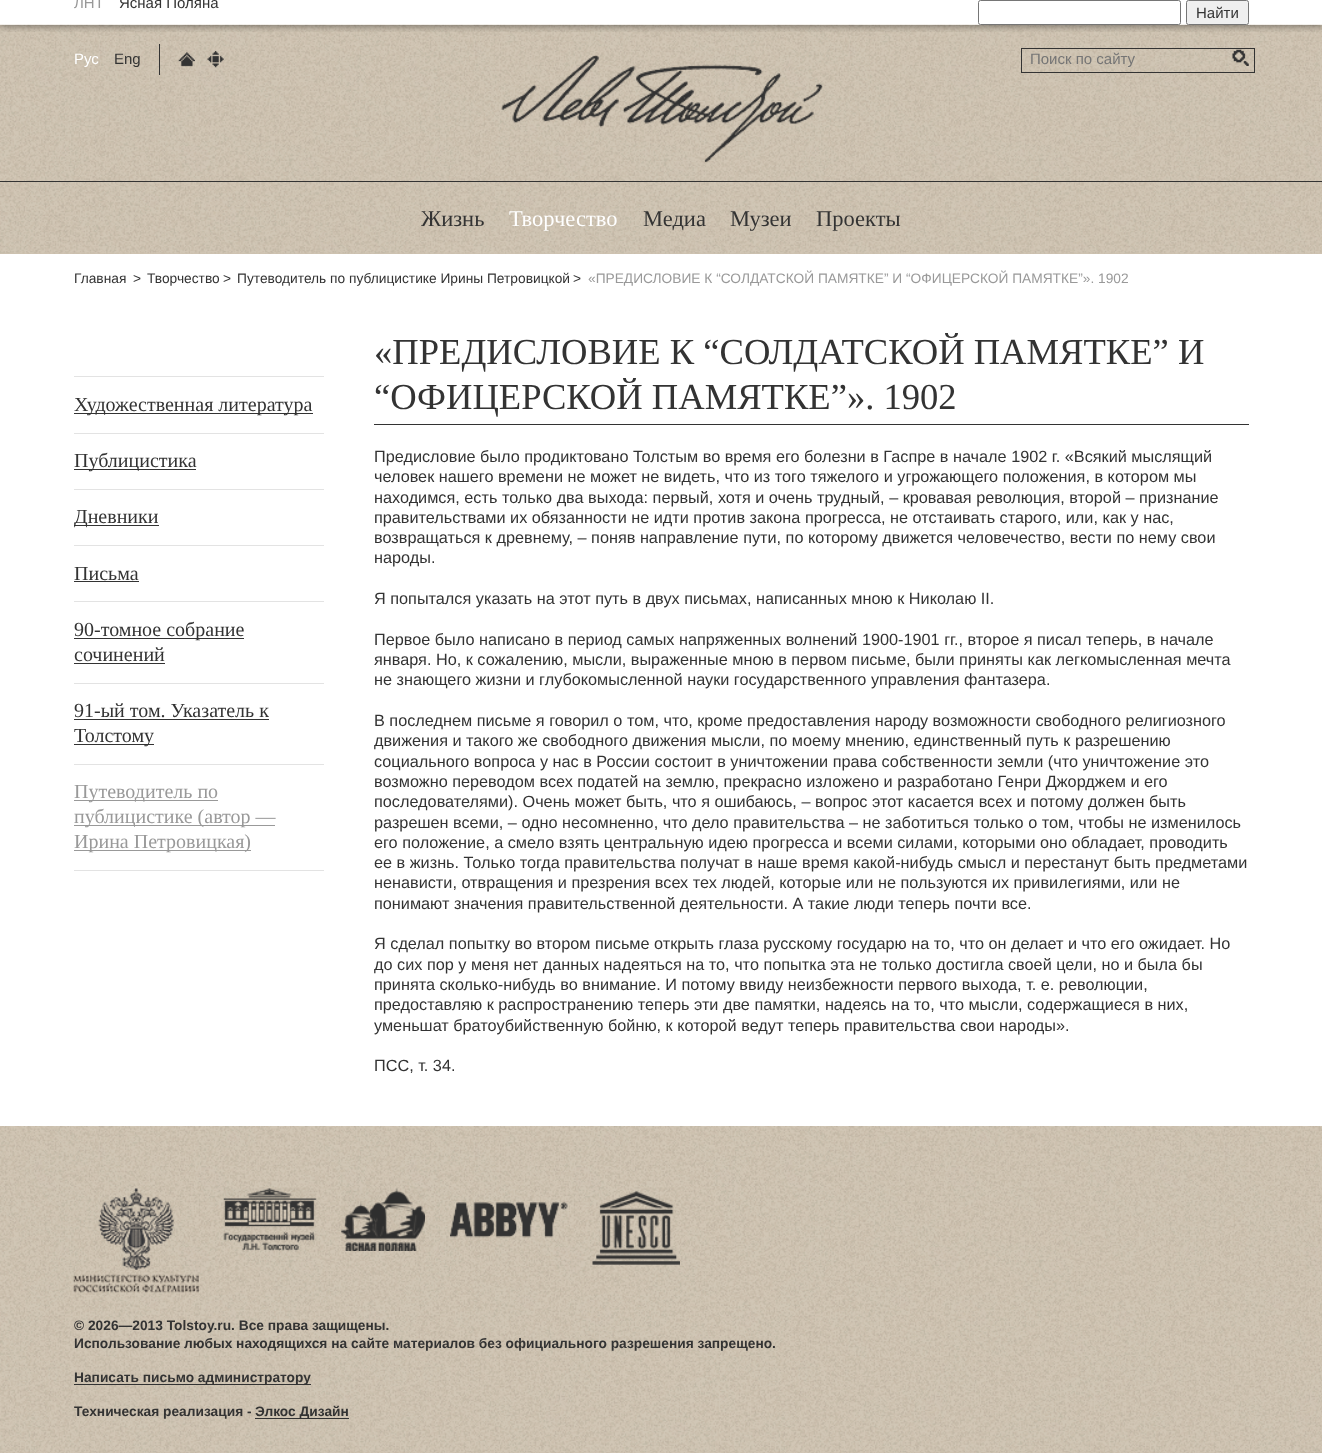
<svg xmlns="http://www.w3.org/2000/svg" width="1322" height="1453">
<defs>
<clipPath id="clip1"><rect x="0" y="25" width="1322" height="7"/></clipPath>
</defs>
<rect width="100%" height="100%" fill="#fff"/>
<rect y="253" width="1322" height="1" fill="#ccc1af"/>
<image x="0" y="24" width="1322" height="230" href="media/4.png"/>
<g clip-path="url(#clip1)">
<rect y="-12" width="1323" height="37" fill="#0000008c" filter="blur(4px)"/>
</g>
<text x="74" y="8" style="font-family:Liberation Sans;font-size:15px;fill:#999">ЛНТ</text>
<text x="119" y="8" style="font-family:Liberation Sans;font-size:15px;fill:#333">Ясная Поляна</text>
<rect x="978.5" y="0.5" width="202" height="24" rx="2" fill="#fff" stroke="#767676"/>
<rect x="1186.5" y="0.5" width="62" height="24" rx="2" fill="#efefef" stroke="#767676"/>
<text x="1196" y="18" style="font-family:Liberation Sans;font-size:15px;fill:#333">Найти</text>
<text x="74" y="64" style="font-family:Liberation Sans;font-size:15px;fill:#fff">Рус</text>
<text x="114" y="64" style="font-family:Liberation Sans;font-size:15px;fill:#333">Eng</text>
<rect x="159" y="44" width="1" height="31" fill="#333"/>
<image x="178" y="52" width="17" height="15" href="media/1.png"/>
<image x="207" y="51" width="17" height="17" href="media/2.png"/>
<rect x="1021.5" y="48.5" width="233" height="24" fill="none" stroke="#333"/>
<text x="1030" y="64" style="font-family:Liberation Sans;font-size:15px;fill:#757575">Поиск по сайту</text>
<image x="1232" y="49" width="17" height="17" href="media/3.png"/>
<image x="501" y="55" width="322" height="108" href="media/5.png"/>
<rect y="181" width="1322" height="1" fill="#333"/>
<text x="421" y="226" style="font-family:Liberation Serif;font-size:22.5px;fill:#333">Жизнь</text>
<text x="509" y="226" style="font-family:Liberation Serif;font-size:22.5px;fill:#fff">Творчество</text>
<text x="643" y="226" style="font-family:Liberation Serif;font-size:22.5px;fill:#333">Медиа</text>
<text x="730" y="226" style="font-family:Liberation Serif;font-size:22.5px;fill:#333">Музеи</text>
<text x="816" y="226" style="font-family:Liberation Serif;font-size:22.5px;fill:#333">Проекты</text>
<text x="74" y="283" style="font-family:Liberation Sans;font-size:13.75px;fill:#333">Главная</text>
<text x="133" y="283" style="font-family:Liberation Sans;font-size:13.75px;fill:#333">&gt;</text>
<text x="147" y="283" style="font-family:Liberation Sans;font-size:13.75px;fill:#333">Творчество</text>
<text x="223" y="283" style="font-family:Liberation Sans;font-size:13.75px;fill:#333">&gt;</text>
<text x="237" y="283" style="font-family:Liberation Sans;font-size:13.75px;fill:#333">Путеводитель по публицистике Ирины Петровицкой</text>
<text x="573" y="283" style="font-family:Liberation Sans;font-size:13.75px;fill:#333">&gt;</text>
<text x="588" y="283" style="font-family:Liberation Sans;font-size:13.75px;fill:#999">«ПРЕДИСЛОВИЕ К “СОЛДАТСКОЙ ПАМЯТКЕ” И “ОФИЦЕРСКОЙ ПАМЯТКЕ”». 1902</text>
<rect x="74" y="870" width="250" height="1" fill="#e3e3e3"/>
<rect x="74" y="376" width="250" height="1" fill="#e3e3e3"/>
<rect x="74" y="413" width="239" height="1" fill="#333"/>
<text x="74" y="411" style="font-family:Liberation Serif;font-size:20px;fill:#333">Художественная литература</text>
<rect x="74" y="433" width="250" height="1" fill="#e3e3e3"/>
<rect x="74" y="469" width="122" height="1" fill="#333"/>
<text x="74" y="467" style="font-family:Liberation Serif;font-size:20px;fill:#333">Публицистика</text>
<rect x="74" y="489" width="250" height="1" fill="#e3e3e3"/>
<rect x="74" y="525" width="85" height="1" fill="#333"/>
<text x="74" y="523" style="font-family:Liberation Serif;font-size:20px;fill:#333">Дневники</text>
<rect x="74" y="545" width="250" height="1" fill="#e3e3e3"/>
<text x="74" y="580" style="font-family:Liberation Serif;font-size:20px;fill:#333">Письма</text>
<rect x="74" y="581" width="65" height="1" fill="#333"/>
<rect x="74" y="601" width="250" height="1" fill="#e3e3e3"/>
<rect x="74" y="638" width="170" height="1" fill="#333"/>
<text x="74" y="636" style="font-family:Liberation Serif;font-size:20px;fill:#333">90-томное собрание</text>
<text x="74" y="661" style="font-family:Liberation Serif;font-size:20px;fill:#333">сочинений</text>
<rect x="74" y="663" width="91" height="1" fill="#333"/>
<rect x="74" y="683" width="250" height="1" fill="#e3e3e3"/>
<text x="74" y="717" style="font-family:Liberation Serif;font-size:20px;fill:#333">91-ый том. Указатель к</text>
<rect x="74" y="719" width="195" height="1" fill="#333"/>
<rect x="74" y="744" width="80" height="1" fill="#333"/>
<text x="74" y="742" style="font-family:Liberation Serif;font-size:20px;fill:#333">Толстому</text>
<rect x="74" y="764" width="250" height="1" fill="#e3e3e3"/>
<rect x="74" y="800" width="144" height="1" fill="#999"/>
<text x="74" y="798" style="font-family:Liberation Serif;font-size:20px;fill:#999">Путеводитель по</text>
<rect x="74" y="825" width="201" height="1" fill="#999"/>
<text x="74" y="823" style="font-family:Liberation Serif;font-size:20px;fill:#999">публицистике (автор —</text>
<rect x="74" y="850" width="177" height="1" fill="#999"/>
<text x="74" y="848" style="font-family:Liberation Serif;font-size:20px;fill:#999">Ирина Петровицкая)</text>
<rect x="374" y="424" width="875" height="1" fill="#333"/>
<text x="374" y="364" style="font-family:Liberation Serif;font-size:36.6px;fill:#333">«ПРЕДИСЛОВИЕ К “СОЛДАТСКОЙ ПАМЯТКЕ” И</text>
<text x="374" y="409" style="font-family:Liberation Serif;font-size:36.6px;fill:#333">“ОФИЦЕРСКОЙ ПАМЯТКЕ”». 1902</text>
<text x="374" y="462" style="font-family:Liberation Sans;font-size:16.25px;fill:#333">Предисловие было продиктовано Толстым во время его болезни в Гаспре в начале 1902 г. «Всякий мыслящий</text>
<text x="374" y="482" style="font-family:Liberation Sans;font-size:16.25px;fill:#333">человек нашего времени не может не видеть, что из того тяжелого и угрожающего положения, в котором мы</text>
<text x="374" y="503" style="font-family:Liberation Sans;font-size:16.25px;fill:#333">находимся, есть только два выхода: первый, хотя и очень трудный, – кровавая революция, второй – признание</text>
<text x="374" y="523" style="font-family:Liberation Sans;font-size:16.25px;fill:#333">правительствами их обязанности не идти против закона прогресса, не отстаивать старого, или, как у нас,</text>
<text x="374" y="543" style="font-family:Liberation Sans;font-size:16.25px;fill:#333">возвращаться к древнему, – поняв направление пути, по которому движется человечество, вести по нему свои</text>
<text x="374" y="563" style="font-family:Liberation Sans;font-size:16.25px;fill:#333">народы.</text>
<text x="374" y="604" style="font-family:Liberation Sans;font-size:16.25px;fill:#333">Я попытался указать на этот путь в двух письмах, написанных мною к Николаю II.</text>
<text x="374" y="645" style="font-family:Liberation Sans;font-size:16.25px;fill:#333">Первое было написано в период самых напряженных волнений 1900-1901 гг., второе я писал теперь, в начале</text>
<text x="374" y="665" style="font-family:Liberation Sans;font-size:16.25px;fill:#333">января. Но, к сожалению, мысли, выраженные мною в первом письме, были приняты как легкомысленная мечта</text>
<text x="374" y="685" style="font-family:Liberation Sans;font-size:16.25px;fill:#333">не знающего жизни и глубокомысленной науки государственного управления фантазера.</text>
<text x="374" y="726" style="font-family:Liberation Sans;font-size:16.25px;fill:#333">В последнем письме я говорил о том, что, кроме предоставления народу возможности свободного религиозного</text>
<text x="374" y="746" style="font-family:Liberation Sans;font-size:16.25px;fill:#333">движения и такого же свободного движения мысли, по моему мнению, единственный путь к разрешению</text>
<text x="374" y="767" style="font-family:Liberation Sans;font-size:16.25px;fill:#333">социального вопроса у нас в России состоит в уничтожении права собственности земли (что уничтожение это</text>
<text x="374" y="787" style="font-family:Liberation Sans;font-size:16.25px;fill:#333">возможно переводом всех податей на землю, прекрасно изложено и разработано Генри Джорджем и его</text>
<text x="374" y="807" style="font-family:Liberation Sans;font-size:16.25px;fill:#333">последователями). Очень может быть, что я ошибаюсь, – вопрос этот касается всех и потому должен быть</text>
<text x="374" y="828" style="font-family:Liberation Sans;font-size:16.25px;fill:#333">разрешен всеми, – одно несомненно, что дело правительства – не заботиться только о том, чтобы не изменилось</text>
<text x="374" y="848" style="font-family:Liberation Sans;font-size:16.25px;fill:#333">его положение, а смело взять центральную идею прогресса и всеми силами, которыми оно обладает, проводить</text>
<text x="374" y="868" style="font-family:Liberation Sans;font-size:16.25px;fill:#333">ее в жизнь. Только тогда правительства получат в наше время какой-нибудь смысл и перестанут быть предметами</text>
<text x="374" y="888" style="font-family:Liberation Sans;font-size:16.25px;fill:#333">ненависти, отвращения и презрения всех тех людей, которые или не пользуются их привилегиями, или не</text>
<text x="374" y="909" style="font-family:Liberation Sans;font-size:16.25px;fill:#333">понимают значения правительственной деятельности. А такие люди теперь почти все.</text>
<text x="374" y="949" style="font-family:Liberation Sans;font-size:16.25px;fill:#333">Я сделал попытку во втором письме открыть глаза русскому государю на то, что он делает и что его ожидает. Но</text>
<text x="374" y="970" style="font-family:Liberation Sans;font-size:16.25px;fill:#333">до сих пор у меня нет данных надеяться на то, что попытка эта не только достигла своей цели, но и была бы</text>
<text x="374" y="990" style="font-family:Liberation Sans;font-size:16.25px;fill:#333">принята сколько-нибудь во внимание. И потому ввиду неизбежности первого выхода, т. е. революции,</text>
<text x="374" y="1010" style="font-family:Liberation Sans;font-size:16.25px;fill:#333">предоставляю к распространению теперь эти две памятки, надеясь на то, что мысли, содержащиеся в них,</text>
<text x="374" y="1031" style="font-family:Liberation Sans;font-size:16.25px;fill:#333">уменьшат братоубийственную бойню, к которой ведут теперь правительства свои народы».</text>
<text x="374" y="1071" style="font-family:Liberation Sans;font-size:16.25px;fill:#333">ПСС, т. 34.</text>
<image x="0" y="1126" width="1322" height="327" href="media/6.png"/>
<image x="73" y="1188" width="126" height="105" href="media/7.png"/>
<image x="223" y="1188" width="94" height="63" href="media/8.png"/>
<image x="341" y="1188" width="84" height="63" href="media/9.png"/>
<image x="450" y="1202" width="118" height="36" href="media/10.png"/>
<image x="592" y="1190" width="88" height="75" href="media/11.png"/>
<text x="74" y="1330" style="font-family:Liberation Sans;font-size:13.75px;font-weight:bold;fill:#333">© 2026—2013 Tolstoy.ru. Все права защищены.</text>
<text x="74" y="1348" style="font-family:Liberation Sans;font-size:13.75px;font-weight:bold;fill:#333">Использование любых находящихся на сайте материалов без официального разрешения запрещено.</text>
<rect x="74" y="1384" width="237" height="1" fill="#333"/>
<text x="74" y="1382" style="font-family:Liberation Sans;font-size:13.75px;font-weight:bold;fill:#333">Написать письмо администратору</text>
<text x="74" y="1416" style="font-family:Liberation Sans;font-size:13.75px;font-weight:bold;fill:#333">Техническая реализация -</text>
<rect x="255" y="1418" width="94" height="1" fill="#333"/>
<text x="255" y="1416" style="font-family:Liberation Sans;font-size:13.75px;font-weight:bold;fill:#333">Элкос Дизайн</text>
</svg>
